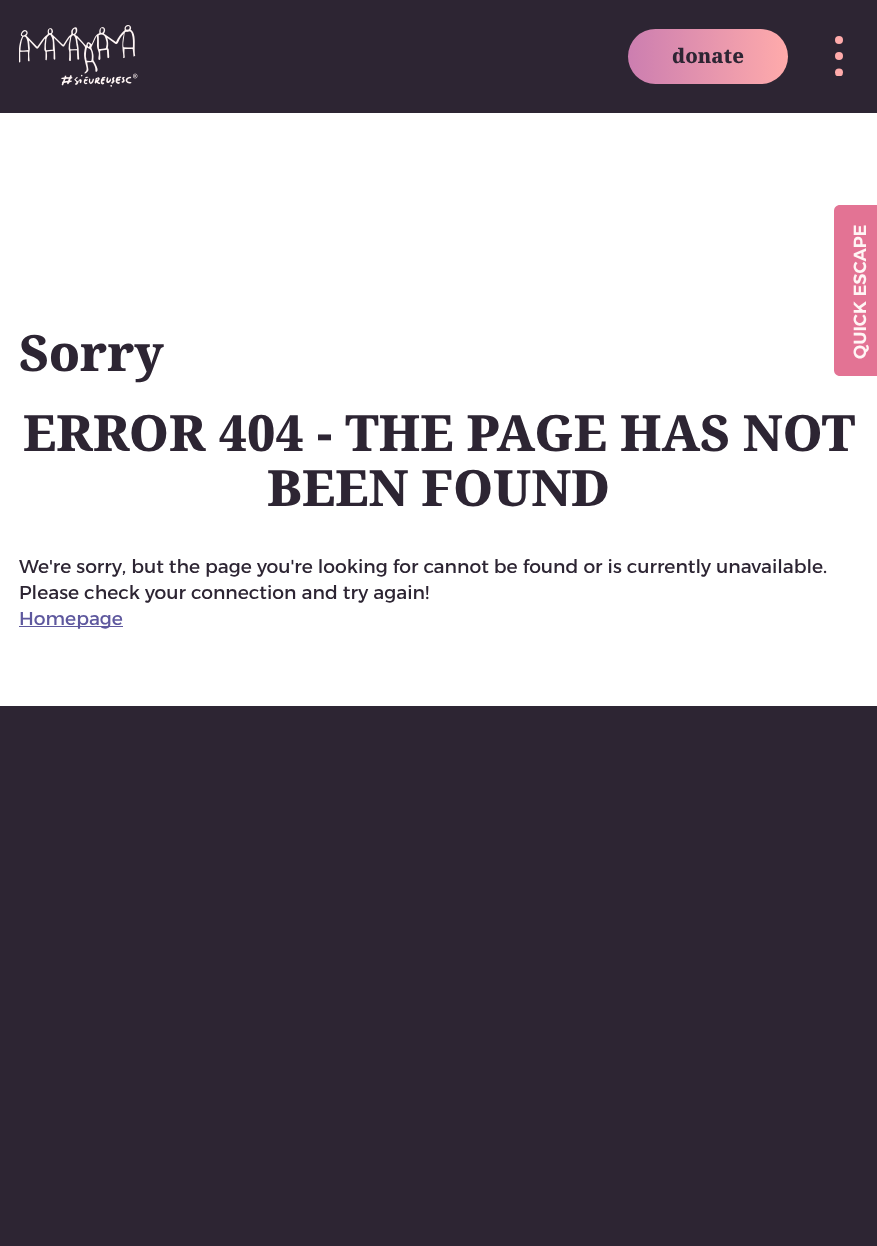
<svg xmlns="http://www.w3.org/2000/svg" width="877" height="1246">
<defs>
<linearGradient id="g1" gradientUnits="userSpaceOnUse" x1="628" y1="56" x2="788" y2="56"><stop offset="0" stop-color="#cc7eb0"/><stop offset="1" stop-color="#ffabab"/></linearGradient>
<clipPath id="clip1"><rect x="819" y="36" width="40" height="40"/></clipPath>
</defs>
<rect width="100%" height="100%" fill="#fff"/>
<rect width="877" height="113" fill="#2d2533"/>
<image x="19" y="25" width="119" height="62" href="media/1.png"/>
<rect x="628" y="29" width="160" height="55" rx="27.5" fill="url(#g1)"/>
<text x="672" y="63" style="font-family:Noto Serif;font-size:20px;font-weight:800;fill:#2d2533">donate</text>
<circle cx="839" cy="40" r="4" fill="#ffabab"/>
<circle cx="839" cy="56" r="4" fill="#ffabab"/>
<g clip-path="url(#clip1)">
<circle cx="839" cy="72.5" r="4" fill="#ffabab"/>
</g>
<path d="M840 205h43v171h-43c-3.5 0-6-2.5-6-6v-159c0-3.5 2.5-6 6-6z" fill="#e37394"/>
<text x="866" y="359" transform="rotate(-90 866 359)" style="font-family:Alexandria;font-size:17.5px;font-weight:600;fill:#fff6f5">QUICK ESCAPE</text>
<text x="19" y="371" style="font-family:Noto Serif;font-size:50px;font-weight:800;fill:#2d2533">Sorry</text>
<text x="23" y="451" style="font-family:Noto Serif;font-size:50px;font-weight:800;fill:#2d2533">ERROR 404 - THE PAGE HAS NOT</text>
<text x="267" y="506" style="font-family:Noto Serif;font-size:50px;font-weight:800;fill:#2d2533">BEEN FOUND</text>
<text x="19" y="573" style="font-family:Alexandria;font-size:18.75px;fill:#2d2533">We're sorry, but the page you're looking for cannot be found or is currently unavailable.</text>
<text x="19" y="599" style="font-family:Alexandria;font-size:18.75px;fill:#2d2533">Please check your connection and try again!</text>
<rect x="19" y="626" width="104" height="1" fill="#5e589e"/>
<text x="19" y="625" style="font-family:Alexandria;font-size:18.75px;fill:#5e589e">Homepage</text>
<rect y="706" width="877" height="540" fill="#2d2533"/>
</svg>
